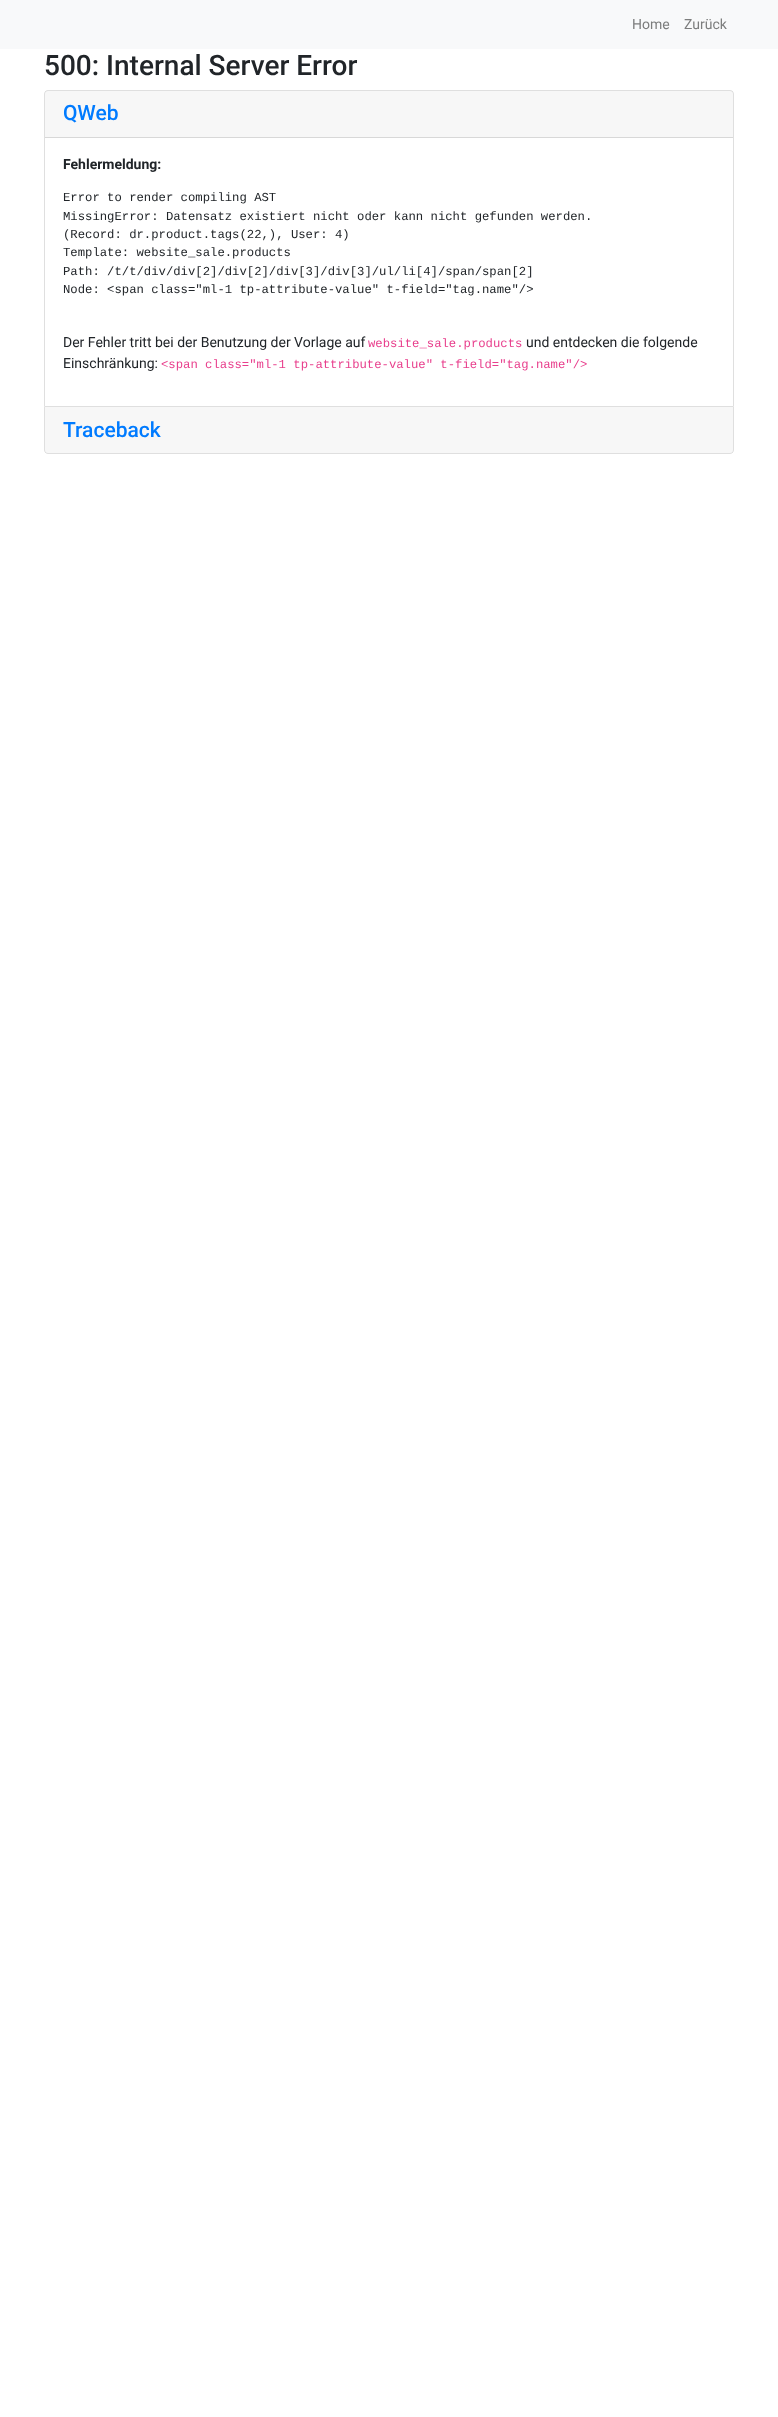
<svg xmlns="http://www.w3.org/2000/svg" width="778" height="2417">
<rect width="100%" height="100%" fill="#fff"/>
<rect width="778" height="49" fill="#f8f9fa"/>
<text x="632" y="29" style="font-family:Roboto;font-size:14px;fill:#7c7d7d">Home</text>
<text x="684" y="29" style="font-family:Roboto;font-size:14px;fill:#7c7d7d">Zurück</text>
<text x="44" y="75" style="font-family:Roboto;font-size:28px;font-weight:500;fill:#212529">500: Internal Server Error</text>
<path d="M48 90h682c2 0 4 2 4 4v312h-690v-312c0-2 2-4 4-4zm0 1h682c2 0 3 1 3 3v312h-688v-312c0-2 1-3 3-3z" fill="#dfdfdf" fill-rule="evenodd"/>
<rect x="45" y="91" width="688" height="46" fill="#00000008"/>
<rect x="45" y="137" width="688" height="1" fill="#d8d8d8"/>
<text x="63" y="120" style="font-family:Roboto;font-size:21px;font-weight:500;fill:#007bff">QWeb</text>
<text x="63" y="169" style="font-family:Roboto;font-size:14px;font-weight:bold;fill:#212529">Fehlermeldung:</text>
<text x="63" y="201" style="font-family:Liberation Mono;font-size:12.25px;fill:#212529">Error to render compiling AST</text>
<text x="63" y="220" style="font-family:Liberation Mono;font-size:12.25px;fill:#212529">MissingError: Datensatz existiert nicht oder kann nicht gefunden werden.</text>
<text x="63" y="238" style="font-family:Liberation Mono;font-size:12.25px;fill:#212529">(Record: dr.product.tags(22,), User: 4)</text>
<text x="63" y="256" style="font-family:Liberation Mono;font-size:12.25px;fill:#212529">Template: website_sale.products</text>
<text x="63" y="275" style="font-family:Liberation Mono;font-size:12.25px;fill:#212529">Path: /t/t/div/div[2]/div[2]/div[3]/div[3]/ul/li[4]/span/span[2]</text>
<text x="63" y="293" style="font-family:Liberation Mono;font-size:12.25px;fill:#212529">Node: &lt;span class="ml-1 tp-attribute-value" t-field="tag.name"/&gt;</text>
<text x="63" y="347" style="font-family:Roboto;font-size:14px;fill:#212529">Der Fehler tritt bei der Benutzung der Vorlage auf</text>
<text x="368" y="347" style="font-family:Liberation Mono;font-size:12.25px;fill:#e83e8c">website_sale.products</text>
<text x="526" y="347" style="font-family:Roboto;font-size:14px;fill:#212529">und entdecken die folgende</text>
<text x="63" y="368" style="font-family:Roboto;font-size:14px;fill:#212529">Einschränkung:</text>
<text x="161" y="368" style="font-family:Liberation Mono;font-size:12.25px;fill:#e83e8c">&lt;span class="ml-1 tp-attribute-value" t-field="tag.name"/&gt;</text>
<path d="M44.5 406.5h689v43.5c0 2-1.5 3.5-3.5 3.5h-682c-2 0-3.5-1.5-3.5-3.5z" fill="none" stroke="#dfdfdf"/>
<rect x="45" y="407" width="688" height="46" fill="#00000008"/>
<text x="63" y="437" style="font-family:Roboto;font-size:21px;font-weight:500;fill:#007bff">Traceback</text>
</svg>
